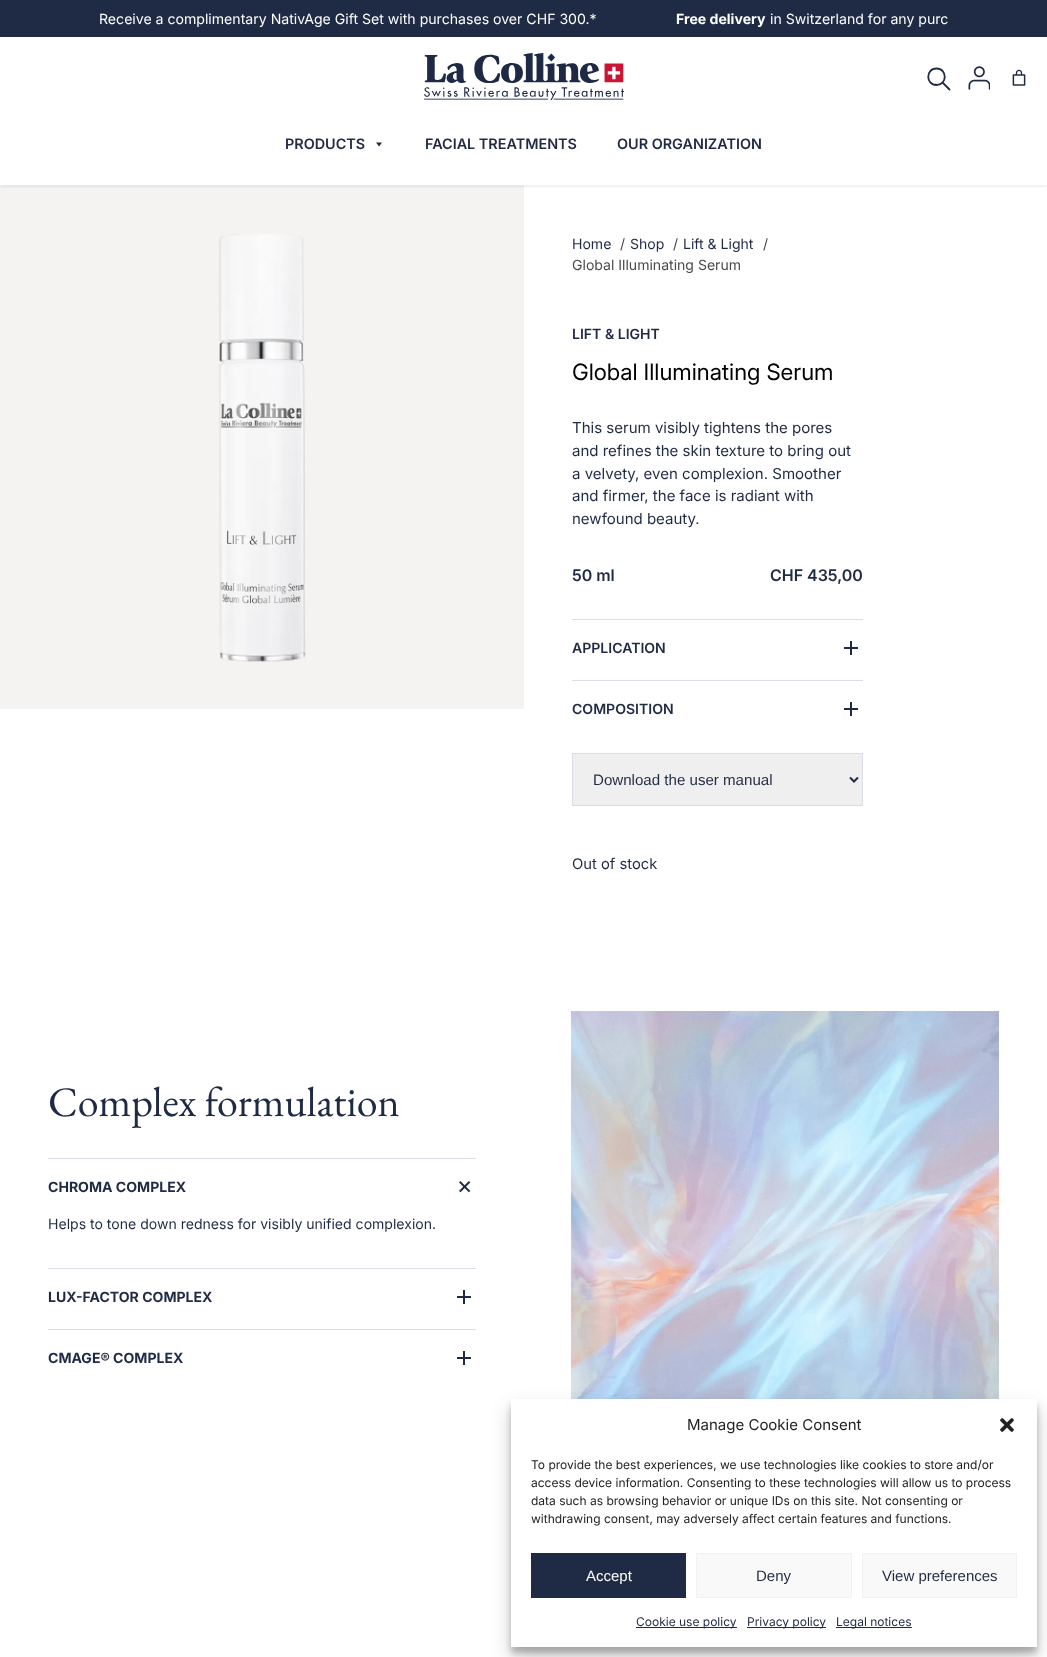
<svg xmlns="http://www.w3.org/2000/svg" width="1047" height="1657">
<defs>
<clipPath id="clip1"><rect x="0" y="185" width="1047" height="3"/></clipPath>
</defs>
<rect width="100%" height="100%" fill="#fff"/>
<rect width="1047" height="37" fill="#1f2a44"/>
<text x="99" y="24" style="font-family:'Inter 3';font-size:14.1px;fill:#fff">Receive a complimentary NativAge Gift Set with purchases over CHF 300.*</text>
<text x="676" y="24" style="font-family:Inter;font-size:14.1px;font-weight:bold;fill:#fff">Free delivery</text>
<text x="770" y="24" style="font-family:'Inter 3';font-size:14.1px;fill:#fff">in Switzerland for any purc</text>
<rect y="185" width="524" height="524" fill="#f5f3f1"/>
<g clip-path="url(#clip1)">
<rect y="39" width="1047" height="148" fill="#00000012" filter="blur(2px)"/>
</g>
<image x="424" y="53" width="200" height="47" href="media/1.png"/>
<path d="M936.5 85c11 0 11-16.5 0-16.5c-11 0-11 16.5 0 16.5zm13 4.5l-7-7" fill="none" stroke="#1f2a44" stroke-width="1.8" stroke-linecap="round" stroke-linejoin="round"/>
<image x="968" y="66" width="22" height="24" href="media/2.png"/>
<image x="1012" y="69" width="14" height="17" href="media/3.png"/>
<text x="285" y="149" style="font-family:Inter;font-size:14.4px;font-weight:600;fill:#1f2a44">PRODUCTS</text>
<path d="M382 142.5l-3 4l-3-4z" fill="#1f2a44"/>
<text x="425" y="149" style="font-family:Inter;font-size:14.4px;font-weight:600;fill:#1f2a44">FACIAL TREATMENTS</text>
<text x="617" y="149" style="font-family:Inter;font-size:14.4px;font-weight:600;fill:#1f2a44">OUR ORGANIZATION</text>
<image x="218" y="233" width="88" height="429" href="media/4.png"/>
<text x="572" y="249" style="font-family:'Inter 3';font-size:14.05px;fill:#1f2a44">Home</text>
<text x="620" y="249" style="font-family:'Inter 3';font-size:14.05px;fill:#4b4b4b">/</text>
<text x="630" y="249" style="font-family:'Inter 3';font-size:14.05px;fill:#1f2a44">Shop</text>
<text x="673" y="249" style="font-family:'Inter 3';font-size:14.05px;fill:#4b4b4b">/</text>
<text x="683" y="249" style="font-family:'Inter 3';font-size:14.05px;fill:#1f2a44">Lift &amp; Light</text>
<text x="763" y="249" style="font-family:'Inter 3';font-size:14.05px;fill:#4b4b4b">/</text>
<text x="572" y="270" style="font-family:'Inter 3';font-size:14.05px;fill:#4b4b4b">Global Illuminating Serum</text>
<text x="572" y="339" style="font-family:Inter;font-size:14.05px;font-weight:600;fill:#1f2a44">LIFT &amp; LIGHT</text>
<text x="572" y="380" style="font-family:Inter;font-size:22.6px;fill:#000">Global Illuminating Serum</text>
<text x="572" y="433" style="font-family:'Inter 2';font-size:15.1px;fill:#1f2a44">This serum visibly tightens the pores</text>
<text x="572" y="456" style="font-family:'Inter 2';font-size:15.1px;fill:#1f2a44">and refines the skin texture to bring out</text>
<text x="572" y="479" style="font-family:'Inter 2';font-size:15.1px;fill:#1f2a44">a velvety, even complexion. Smoother</text>
<text x="572" y="501" style="font-family:'Inter 2';font-size:15.1px;fill:#1f2a44">and firmer, the face is radiant with</text>
<text x="572" y="524" style="font-family:'Inter 2';font-size:15.1px;fill:#1f2a44">newfound beauty.</text>
<text x="572" y="581" style="font-family:'Inter 2';font-size:16px;font-weight:600;fill:#1f2a44">50 ml</text>
<text x="770" y="581" style="font-family:'Inter 2';font-size:16px;font-weight:600;fill:#1f2a44">CHF 435,00</text>
<rect x="572" y="619" width="291" height="1" fill="#d9dde5"/>
<text x="572" y="653" style="font-family:Inter;font-size:14.05px;font-weight:600;fill:#1f2a44">APPLICATION</text>
<image x="844" y="641" width="14" height="14" href="media/5.png"/>
<rect x="572" y="680" width="291" height="1" fill="#d9dde5"/>
<text x="572" y="714" style="font-family:Inter;font-size:14.05px;font-weight:600;fill:#1f2a44">COMPOSITION</text>
<image x="844" y="702" width="14" height="14" href="media/5.png"/>
<rect x="572.5" y="753.5" width="290" height="52" fill="#efefef" stroke="#d9dde5"/>
<path d="M850 777.5l4 4l4-4" fill="none" stroke="#1f2a44" stroke-width="2"/>
<text x="593" y="785" style="font-family:Liberation Sans;font-size:15.1px;fill:#1f2a44">Download the user manual</text>
<text x="572" y="869" style="font-family:'Inter 3';font-size:14.75px;fill:#1f2a44">Out of stock</text>
<text x="48" y="1116" style="font-family:EB Garamond;font-size:42px;fill:#1f2a44">Complex formulation</text>
<rect x="48" y="1158" width="428" height="1" fill="#d9dde5"/>
<text x="48" y="1192" style="font-family:Inter;font-size:14.05px;font-weight:bold;fill:#1f2a44">CHROMA COMPLEX</text>
<image x="459" y="1181" width="12" height="12" href="media/6.png"/>
<text x="48" y="1229" style="font-family:'Inter 3';font-size:14.05px;fill:#1f2a44">Helps to tone down redness for visibly unified complexion.</text>
<rect x="48" y="1268" width="428" height="1" fill="#d9dde5"/>
<text x="48" y="1302" style="font-family:Inter;font-size:14.05px;font-weight:bold;fill:#1f2a44">LUX-FACTOR COMPLEX</text>
<image x="457" y="1290" width="14" height="14" href="media/5.png"/>
<rect x="48" y="1329" width="428" height="1" fill="#d9dde5"/>
<text x="48" y="1363" style="font-family:Inter;font-size:14.05px;font-weight:bold;fill:#1f2a44">CMAGE® COMPLEX</text>
<image x="457" y="1351" width="14" height="14" href="media/5.png"/>
<image x="571" y="1011" width="428" height="388" href="media/7.png"/>
<rect x="511" y="1405" width="526" height="248" fill="#0000003b" filter="blur(3px)"/>
<rect x="511" y="1409" width="526" height="248" fill="#00000030" filter="blur(10px)"/>
<rect x="511" y="1399" width="526" height="248" fill="#fff"/>
<text x="687" y="1430" style="font-family:'Inter 3';font-size:15px;fill:#222">Manage Cookie Consent</text>
<image x="1000" y="1418" width="14" height="14" href="media/8.png"/>
<text x="531" y="1469" style="font-family:'Inter 3';font-size:12px;fill:#222">To provide the best experiences, we use technologies like cookies to store and/or</text>
<text x="531" y="1487" style="font-family:'Inter 3';font-size:12px;fill:#222">access device information. Consenting to these technologies will allow us to process</text>
<text x="531" y="1505" style="font-family:'Inter 3';font-size:12px;fill:#222">data such as browsing behavior or unique IDs on this site. Not consenting or</text>
<text x="531" y="1523" style="font-family:'Inter 3';font-size:12px;fill:#222">withdrawing consent, may adversely affect certain features and functions.</text>
<rect x="531" y="1553" width="155" height="45" fill="#1f2a44"/>
<text x="586" y="1581" style="font-family:Liberation Sans;font-size:15px;fill:#fff">Accept</text>
<rect x="696.5" y="1553.5" width="155" height="44" fill="#f9f9f9" stroke="#f2f2f2"/>
<text x="756" y="1581" style="font-family:Liberation Sans;font-size:15px;fill:#1f2a44">Deny</text>
<rect x="862.5" y="1553.5" width="154" height="44" fill="#f9f9f9" stroke="#f2f2f2"/>
<text x="882" y="1581" style="font-family:Liberation Sans;font-size:15px;fill:#1f2a44">View preferences</text>
<rect x="636" y="1627" width="101" height="1" fill="#1f2a44"/>
<text x="636" y="1626" style="font-family:'Inter 3';font-size:12px;fill:#1f2a44">Cookie use policy</text>
<rect x="747" y="1627" width="79" height="1" fill="#1f2a44"/>
<text x="747" y="1626" style="font-family:'Inter 3';font-size:12px;fill:#1f2a44">Privacy policy</text>
<rect x="836" y="1627" width="76" height="1" fill="#1f2a44"/>
<text x="836" y="1626" style="font-family:'Inter 3';font-size:12px;fill:#1f2a44">Legal notices</text>
</svg>
